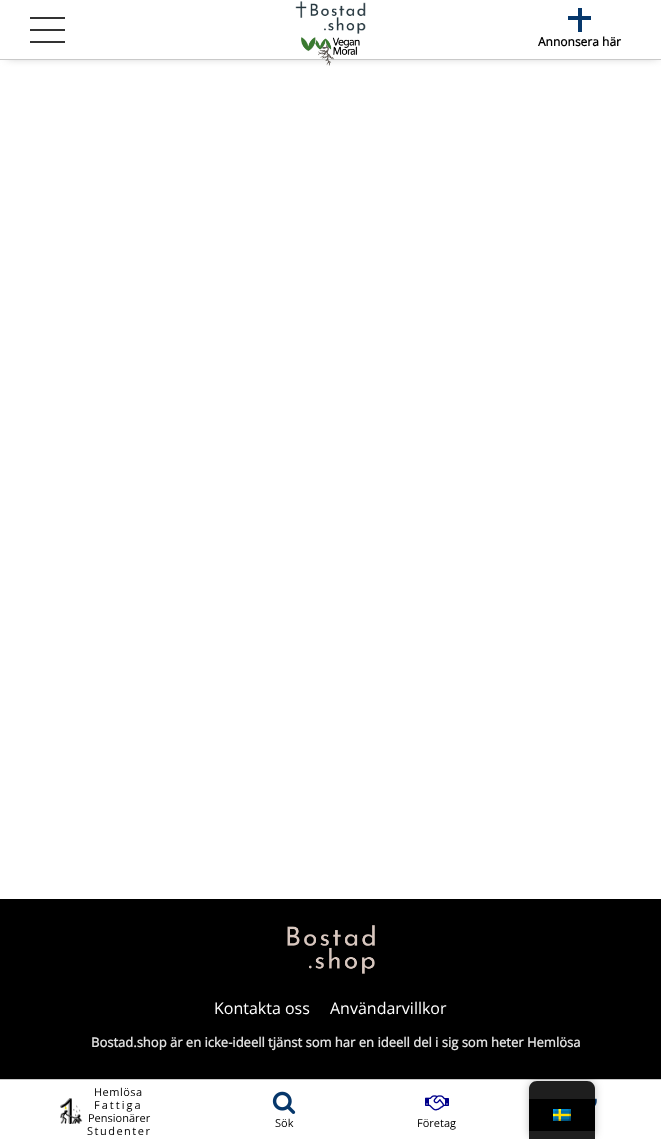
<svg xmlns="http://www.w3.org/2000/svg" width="661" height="1139">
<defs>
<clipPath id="clip1"><rect x="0" y="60" width="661" height="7"/></clipPath>
</defs>
<rect width="100%" height="100%" fill="#fff"/>
<g clip-path="url(#clip1)">
<rect x="7" y="7" width="651" height="50" fill="#afafaf" filter="blur(5px)"/>
</g>
<rect y="59" width="661" height="1" fill="#c9c9c9"/>
<rect x="30" y="17" width="35" height="2" fill="#333"/>
<rect x="30" y="29" width="35" height="2" fill="#333"/>
<rect x="30" y="41" width="35" height="2" fill="#333"/>
<image x="295" y="1" width="71" height="33" href="media/1.png"/>
<image x="301" y="37" width="59" height="29" href="media/2.png"/>
<rect x="578" y="8" width="4" height="24" fill="#06376b"/>
<rect x="568" y="16" width="23" height="4" fill="#06376b"/>
<text x="538" y="46" style="font-family:Open Sans;font-size:12px;font-weight:bold;fill:#000">Annonsera här</text>
<rect y="899" width="661" height="180" fill="#000"/>
<image x="287" y="925" width="88" height="49" href="media/3.png"/>
<text x="214" y="1014" style="font-family:Open Sans;font-size:16px;fill:#fff">Kontakta oss</text>
<text x="330" y="1014" style="font-family:Open Sans;font-size:16px;fill:#fff">Användarvillkor</text>
<text x="91" y="1047" style="font-family:Open Sans;font-size:13px;font-weight:bold;fill:#e0e0e0">Bostad.shop är en icke-ideell tjänst som har en ideell del i sig som heter Hemlösa</text>
<rect y="1079" width="661" height="1" fill="#c9c9c9"/>
<image x="60" y="1098" width="23" height="26" href="media/4.png"/>
<text x="94" y="1096" style="font-family:Open Sans;font-size:11px;letter-spacing:0.5px;fill:#000">Hemlösa</text>
<text x="94" y="1109" style="font-family:Open Sans;font-size:11px;letter-spacing:2px;fill:#000">Fattiga</text>
<text x="88" y="1122" style="font-family:Open Sans;font-size:11px;fill:#000">Pensionärer</text>
<text x="87" y="1135" style="font-family:Open Sans;font-size:11px;letter-spacing:1.5px;fill:#000">Studenter</text>
<image x="595" y="1098" width="2" height="8" href="media/5.png"/>
<image x="272" y="1091" width="24" height="23" href="media/6.png"/>
<text x="275" y="1127" style="font-family:Open Sans;font-size:11px;fill:#000">Sök</text>
<image x="425" y="1095" width="24" height="16" href="media/7.png"/>
<text x="417" y="1127" style="font-family:Open Sans;font-size:11px;fill:#000">Företag</text>
<rect x="529" y="1081" width="66" height="58" rx="8" fill="#00000040" filter="blur(4px)"/>
<path d="M537 1081h50c4.5 0 8 3.5 8 8v50h-66v-50c0-4.5 3.5-8 8-8z" fill="#1e1e1e"/>
<rect x="529" y="1099" width="66" height="32" fill="#000"/>
<image x="553" y="1109" width="18" height="12" href="media/8.png"/>
</svg>
